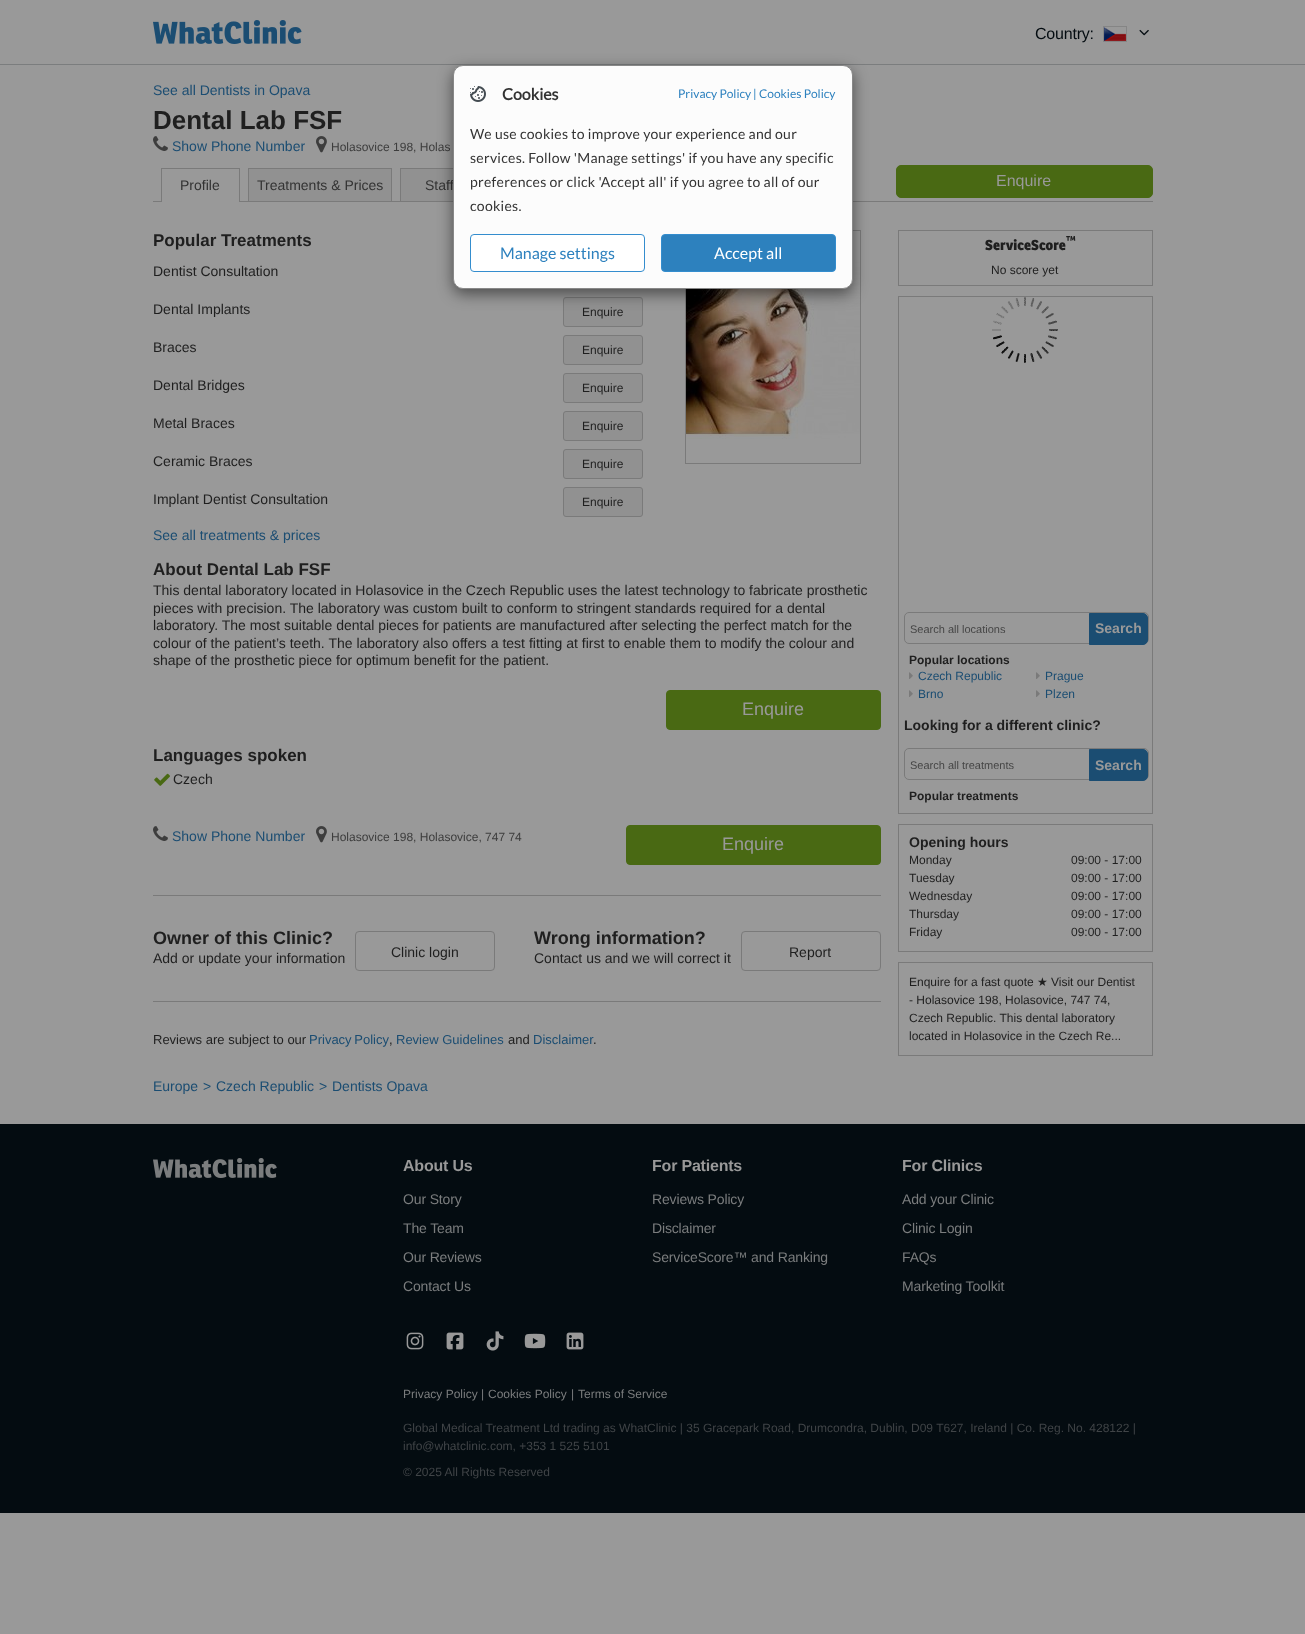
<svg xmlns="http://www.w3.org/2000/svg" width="1305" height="1634">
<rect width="100%" height="100%" fill="#999"/>
<rect y="64" width="1305" height="1" fill="#7b7d7e"/>
<image x="153" y="20" width="149" height="24" href="media/1.png"/>
<text x="1035" y="39" style="font-family:Liberation Sans;font-size:16px;letter-spacing:-0.2px;fill:#040c11">Country:</text>
<rect x="1103.5" y="26.5" width="23" height="15" fill="none" stroke="#858585"/>
<image x="1104" y="27" width="22" height="14" href="media/2.png"/>
<image x="1139" y="29" width="10" height="7" href="media/3.png"/>
<text x="153" y="95" style="font-family:Liberation Sans;font-size:14px;fill:#1b4d72">See all Dentists in Opava</text>
<text x="153" y="129" style="font-family:Liberation Sans;font-size:26px;font-weight:bold;fill:#1f1f1f">Dental Lab FSF</text>
<image x="153" y="136" width="15" height="15" href="media/4.png"/>
<text x="172" y="151" style="font-family:Liberation Sans;font-size:14px;fill:#1b4d72">Show Phone Number</text>
<image x="316" y="136" width="11" height="17" href="media/5.png"/>
<text x="331" y="151" style="font-family:Liberation Sans;font-size:12px;fill:#3d3d3d">Holasovice 198, Holas</text>
<rect x="896.5" y="165.5" width="256" height="32" rx="4.5" fill="#496913" stroke="#496913"/>
<text x="996" y="186" style="font-family:Liberation Sans;font-size:16px;fill:#999">Enquire</text>
<rect x="153" y="201" width="1000" height="1" fill="#7a7a7a"/>
<rect x="162" y="201" width="77" height="1" fill="#999"/>
<rect x="161" y="168" width="79" height="1" fill="#7a7a7a"/>
<rect x="239" y="168" width="1" height="34" fill="#7a7a7a"/>
<rect x="161" y="168" width="1" height="34" fill="#7a7a7a"/>
<text x="180" y="190" style="font-family:Liberation Sans;font-size:14px;fill:#333">Profile</text>
<rect x="248.5" y="168.5" width="143" height="33" fill="#919191" stroke="#7a7a7a"/>
<text x="257" y="190" style="font-family:Liberation Sans;font-size:14px;fill:#333">Treatments &amp; Prices</text>
<rect x="401" y="169" width="52" height="32" fill="#919191"/>
<rect x="400.5" y="168.5" width="78" height="33" fill="none" stroke="#7a7a7a"/>
<text x="425" y="190" style="font-family:Liberation Sans;font-size:14px;fill:#333">Staff</text>
<text x="153" y="246" style="font-family:Liberation Sans;font-size:17px;font-weight:bold;fill:#1f1f1f">Popular Treatments</text>
<text x="153" y="276" style="font-family:Liberation Sans;font-size:14px;fill:#1f1f1f">Dentist Consultation</text>
<text x="153" y="314" style="font-family:Liberation Sans;font-size:14px;fill:#1f1f1f">Dental Implants</text>
<rect x="563.5" y="297.5" width="79" height="29" rx="2.5" fill="#919191" stroke="#7a7a7a"/>
<text x="582" y="316" style="font-family:Liberation Sans;font-size:12px;fill:#1f1f1f">Enquire</text>
<text x="153" y="352" style="font-family:Liberation Sans;font-size:14px;fill:#1f1f1f">Braces</text>
<rect x="563.5" y="335.5" width="79" height="29" rx="2.5" fill="#919191" stroke="#7a7a7a"/>
<text x="582" y="354" style="font-family:Liberation Sans;font-size:12px;fill:#1f1f1f">Enquire</text>
<text x="153" y="390" style="font-family:Liberation Sans;font-size:14px;fill:#1f1f1f">Dental Bridges</text>
<rect x="563.5" y="373.5" width="79" height="29" rx="2.5" fill="#919191" stroke="#7a7a7a"/>
<text x="582" y="392" style="font-family:Liberation Sans;font-size:12px;fill:#1f1f1f">Enquire</text>
<text x="153" y="428" style="font-family:Liberation Sans;font-size:14px;fill:#1f1f1f">Metal Braces</text>
<rect x="563.5" y="411.5" width="79" height="29" rx="2.5" fill="#919191" stroke="#7a7a7a"/>
<text x="582" y="430" style="font-family:Liberation Sans;font-size:12px;fill:#1f1f1f">Enquire</text>
<text x="153" y="466" style="font-family:Liberation Sans;font-size:14px;fill:#1f1f1f">Ceramic Braces</text>
<rect x="563.5" y="449.5" width="79" height="29" rx="2.5" fill="#919191" stroke="#7a7a7a"/>
<text x="582" y="468" style="font-family:Liberation Sans;font-size:12px;fill:#1f1f1f">Enquire</text>
<text x="153" y="504" style="font-family:Liberation Sans;font-size:14px;fill:#1f1f1f">Implant Dentist Consultation</text>
<rect x="563.5" y="487.5" width="79" height="29" rx="2.5" fill="#919191" stroke="#7a7a7a"/>
<text x="582" y="506" style="font-family:Liberation Sans;font-size:12px;fill:#1f1f1f">Enquire</text>
<text x="153" y="540" style="font-family:Liberation Sans;font-size:14px;fill:#1b4d72">See all treatments &amp; prices</text>
<rect x="685.5" y="230.5" width="175" height="233" fill="none" stroke="#7a7a7a"/>
<image x="686" y="251" width="174" height="188" href="media/6.png"/>
<text x="153" y="575" style="font-family:Liberation Sans;font-size:17px;font-weight:bold;fill:#1f1f1f">About Dental Lab FSF</text>
<text x="153" y="595" style="font-family:Liberation Sans;font-size:14px;fill:#1f1f1f">This dental laboratory located in Holasovice in the Czech Republic uses the latest technology to fabricate prosthetic</text>
<text x="153" y="613" style="font-family:Liberation Sans;font-size:14px;fill:#1f1f1f">pieces with precision. The laboratory was custom built to conform to stringent standards required for a dental</text>
<text x="153" y="630" style="font-family:Liberation Sans;font-size:14px;fill:#1f1f1f">laboratory. The most suitable dental pieces for patients are manufactured after selecting the perfect match for the</text>
<text x="153" y="648" style="font-family:Liberation Sans;font-size:14px;fill:#1f1f1f">colour of the patient’s teeth. The laboratory also offers a test fitting at first to enable them to modify the colour and</text>
<text x="153" y="665" style="font-family:Liberation Sans;font-size:14px;fill:#1f1f1f">shape of the prosthetic piece for optimum benefit for the patient.</text>
<rect x="666.5" y="690.5" width="214" height="39" rx="3.5" fill="#496913" stroke="#496913"/>
<text x="742" y="715" style="font-family:Liberation Sans;font-size:18px;fill:#999">Enquire</text>
<text x="153" y="761" style="font-family:Liberation Sans;font-size:17px;font-weight:bold;fill:#1f1f1f">Languages spoken</text>
<image x="154" y="773" width="16" height="13" href="media/7.png"/>
<text x="173" y="784" style="font-family:Liberation Sans;font-size:14px;fill:#1f1f1f">Czech</text>
<image x="153" y="826" width="15" height="15" href="media/4.png"/>
<text x="172" y="841" style="font-family:Liberation Sans;font-size:14px;fill:#1b4d72">Show Phone Number</text>
<image x="316" y="826" width="11" height="17" href="media/5.png"/>
<text x="331" y="841" style="font-family:Liberation Sans;font-size:12px;fill:#3d3d3d">Holasovice 198, Holasovice, 747 74</text>
<rect x="626.5" y="825.5" width="254" height="39" rx="3.5" fill="#496913" stroke="#496913"/>
<text x="722" y="850" style="font-family:Liberation Sans;font-size:18px;fill:#999">Enquire</text>
<rect x="153" y="895" width="728" height="1" fill="#7a7a7a"/>
<rect x="153" y="1001" width="728" height="1" fill="#7a7a7a"/>
<text x="153" y="944" style="font-family:Liberation Sans;font-size:18px;font-weight:bold;fill:#1f1f1f">Owner of this Clinic?</text>
<text x="153" y="963" style="font-family:Liberation Sans;font-size:14px;fill:#1f1f1f">Add or update your information</text>
<rect x="355.5" y="931.5" width="139" height="39" rx="3.5" fill="none" stroke="#7a7a7a"/>
<text x="391" y="957" style="font-family:Liberation Sans;font-size:14px;fill:#1f1f1f">Clinic login</text>
<text x="534" y="944" style="font-family:Liberation Sans;font-size:18px;font-weight:bold;fill:#1f1f1f">Wrong information?</text>
<text x="534" y="963" style="font-family:Liberation Sans;font-size:14px;fill:#1f1f1f">Contact us and we will correct it</text>
<rect x="741.5" y="931.5" width="139" height="39" rx="3.5" fill="none" stroke="#7a7a7a"/>
<text x="789" y="957" style="font-family:Liberation Sans;font-size:14px;fill:#1f1f1f">Report</text>
<text x="153" y="1044" style="font-family:Liberation Sans;font-size:13px;fill:#1f1f1f">Reviews are subject to our</text>
<text x="309" y="1044" word-spacing="-1" style="font-family:Liberation Sans;font-size:13px;fill:#1b4d72">Privacy Policy</text>
<text x="389" y="1044" style="font-family:Liberation Sans;font-size:13px;fill:#1f1f1f">,</text>
<text x="396" y="1044" style="font-family:Liberation Sans;font-size:13px;fill:#1b4d72">Review Guidelines</text>
<text x="508" y="1044" style="font-family:Liberation Sans;font-size:13px;fill:#1f1f1f">and</text>
<text x="533" y="1044" style="font-family:Liberation Sans;font-size:13px;fill:#1b4d72">Disclaimer</text>
<text x="593" y="1044" style="font-family:Liberation Sans;font-size:13px;fill:#1f1f1f">.</text>
<text x="153" y="1091" style="font-family:Liberation Sans;font-size:14px;fill:#1b4d72">Europe</text>
<text x="203" y="1091" style="font-family:Liberation Sans;font-size:14px;fill:#1b4d72">&gt;</text>
<text x="216" y="1091" style="font-family:Liberation Sans;font-size:14px;fill:#1b4d72">Czech Republic</text>
<text x="319" y="1091" style="font-family:Liberation Sans;font-size:14px;fill:#1b4d72">&gt;</text>
<text x="332" y="1091" style="font-family:Liberation Sans;font-size:14px;fill:#1b4d72">Dentists Opava</text>
<rect x="898.5" y="230.5" width="254" height="55" fill="none" stroke="#7a7a7a"/>
<text x="1066" y="244" style="font-family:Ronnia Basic;font-size:11px;font-weight:800;fill:#1f1f1f">™</text>
<text x="985" y="250" style="font-family:Ronnia Basic;font-size:14px;font-weight:800;fill:#1f1f1f">ServiceScore</text>
<text x="991" y="274" style="font-family:Liberation Sans;font-size:12px;fill:#1f1f1f">No score yet</text>
<rect x="898.5" y="296.5" width="254" height="517" fill="none" stroke="#7a7a7a"/>
<image x="992" y="297" width="66" height="66" href="media/8.png"/>
<rect x="904.5" y="612.5" width="244" height="31" rx="4.5" fill="none" stroke="#7a7a7a"/>
<text x="910" y="633" style="font-family:Liberation Sans;font-size:11px;fill:#464646">Search all locations</text>
<path d="M1089.5 613.5h53.5c2.5 0 4.5 2 4.5 4.5v22c0 2.5-2 4.5-4.5 4.5h-53.5z" fill="#1b4d72" stroke="#1b4d72"/>
<text x="1095" y="633" style="font-family:Liberation Sans;font-size:14px;font-weight:bold;fill:#999">Search</text>
<text x="909" y="664" style="font-family:Liberation Sans;font-size:12px;font-weight:bold;fill:#1f1f1f">Popular locations</text>
<image x="909" y="672" width="4" height="7" href="media/9.png"/>
<text x="918" y="680" style="font-family:Liberation Sans;font-size:12px;fill:#1b4d72">Czech Republic</text>
<image x="1036" y="672" width="4" height="7" href="media/9.png"/>
<text x="1045" y="680" style="font-family:Liberation Sans;font-size:12px;fill:#1b4d72">Prague</text>
<image x="909" y="690" width="4" height="7" href="media/9.png"/>
<text x="918" y="698" style="font-family:Liberation Sans;font-size:12px;fill:#1b4d72">Brno</text>
<image x="1036" y="690" width="4" height="7" href="media/9.png"/>
<text x="1045" y="698" style="font-family:Liberation Sans;font-size:12px;fill:#1b4d72">Plzen</text>
<text x="904" y="730" style="font-family:Liberation Sans;font-size:14px;font-weight:bold;fill:#1f1f1f">Looking for a different clinic?</text>
<rect x="904.5" y="748.5" width="244" height="31" rx="4.5" fill="none" stroke="#7a7a7a"/>
<text x="910" y="769" style="font-family:Liberation Sans;font-size:11px;fill:#464646">Search all treatments</text>
<path d="M1089.5 749.5h53.5c2.5 0 4.5 2 4.5 4.5v22c0 2.5-2 4.5-4.5 4.5h-53.5z" fill="#1b4d72" stroke="#1b4d72"/>
<text x="1095" y="770" style="font-family:Liberation Sans;font-size:14px;font-weight:bold;fill:#999">Search</text>
<text x="909" y="800" style="font-family:Liberation Sans;font-size:12px;font-weight:bold;fill:#1f1f1f">Popular treatments</text>
<rect x="898.5" y="824.5" width="254" height="127" fill="none" stroke="#7a7a7a"/>
<text x="909" y="847" style="font-family:Liberation Sans;font-size:14px;font-weight:bold;fill:#1f1f1f">Opening hours</text>
<text x="909" y="864" style="font-family:Liberation Sans;font-size:12px;fill:#1f1f1f">Monday</text>
<text x="1071" y="864" style="font-family:Liberation Sans;font-size:12px;fill:#1f1f1f">09:00 - 17:00</text>
<text x="909" y="882" style="font-family:Liberation Sans;font-size:12px;fill:#1f1f1f">Tuesday</text>
<text x="1071" y="882" style="font-family:Liberation Sans;font-size:12px;fill:#1f1f1f">09:00 - 17:00</text>
<text x="909" y="900" style="font-family:Liberation Sans;font-size:12px;fill:#1f1f1f">Wednesday</text>
<text x="1071" y="900" style="font-family:Liberation Sans;font-size:12px;fill:#1f1f1f">09:00 - 17:00</text>
<text x="909" y="918" style="font-family:Liberation Sans;font-size:12px;fill:#1f1f1f">Thursday</text>
<text x="1071" y="918" style="font-family:Liberation Sans;font-size:12px;fill:#1f1f1f">09:00 - 17:00</text>
<text x="909" y="936" style="font-family:Liberation Sans;font-size:12px;fill:#1f1f1f">Friday</text>
<text x="1071" y="936" style="font-family:Liberation Sans;font-size:12px;fill:#1f1f1f">09:00 - 17:00</text>
<rect x="898.5" y="962.5" width="254" height="93" fill="none" stroke="#7a7a7a"/>
<text x="909" y="986" style="font-family:Liberation Sans;font-size:12px;fill:#1f1f1f">Enquire for a fast quote</text>
<text x="1037" y="986" style="font-family:DejaVu Sans;font-size:12px;fill:#1f1f1f">★</text>
<text x="1051" y="986" style="font-family:Liberation Sans;font-size:12px;fill:#1f1f1f">Visit our Dentist</text>
<text x="909" y="1004" style="font-family:Liberation Sans;font-size:12px;fill:#1f1f1f">- Holasovice 198, Holasovice, 747 74,</text>
<text x="909" y="1022" style="font-family:Liberation Sans;font-size:12px;fill:#1f1f1f">Czech Republic. This dental laboratory</text>
<text x="909" y="1040" style="font-family:Liberation Sans;font-size:12px;fill:#1f1f1f">located in Holasovice in the Czech Re...</text>
<rect x="453" y="70" width="400" height="224" rx="10" fill="#00000080" filter="blur(7.5px)"/>
<rect x="453.5" y="65.5" width="399" height="223" rx="9.5" fill="#fcfcfc" stroke="#888"/>
<image x="470" y="86" width="16" height="16" href="media/10.png"/>
<text x="502" y="100" style="font-family:Lato;font-size:16px;font-weight:bold;fill:#333">Cookies</text>
<text x="678" y="98" style="font-family:Lato;font-size:12px;fill:#2d81be">Privacy Policy</text>
<text x="753" y="98" style="font-family:Lato;font-size:12px;fill:#2d81be">|</text>
<text x="759" y="98" style="font-family:Lato;font-size:12px;fill:#2d81be">Cookies Policy</text>
<text x="470" y="139" style="font-family:Lato;font-size:14px;letter-spacing:0.28px;fill:#333">We use cookies to improve your experience and our</text>
<text x="470" y="163" style="font-family:Lato;font-size:14px;letter-spacing:0.28px;fill:#333">services. Follow 'Manage settings' if you have any specific</text>
<text x="470" y="187" style="font-family:Lato;font-size:14px;letter-spacing:0.28px;fill:#333">preferences or click 'Accept all' if you agree to all of our</text>
<text x="470" y="211" style="font-family:Lato;font-size:14px;letter-spacing:0.28px;fill:#333">cookies.</text>
<rect x="470.5" y="234.5" width="174" height="37" rx="3.5" fill="#fff" stroke="#348dce"/>
<text x="500" y="259" style="font-family:Lato;font-size:16px;fill:#2d81be">Manage settings</text>
<rect x="661.5" y="234.5" width="174" height="37" rx="3.5" fill="#2d81be" stroke="#348dce"/>
<text x="714" y="259" style="font-family:Lato;font-size:16px;fill:#fff">Accept all</text>
<rect y="1124" width="1305" height="389" fill="#040c11"/>
<image x="153" y="1158" width="124" height="20" href="media/11.png"/>
<text x="403" y="1171" style="font-family:Liberation Sans;font-size:16px;font-weight:bold;letter-spacing:-0.2px;fill:#999">About Us</text>
<text x="403" y="1204" style="font-family:Liberation Sans;font-size:14px;letter-spacing:-0.15px;fill:#7b7d7e">Our Story</text>
<text x="403" y="1233" style="font-family:Liberation Sans;font-size:14px;letter-spacing:-0.15px;fill:#7b7d7e">The Team</text>
<text x="403" y="1262" style="font-family:Liberation Sans;font-size:14px;letter-spacing:-0.15px;fill:#7b7d7e">Our Reviews</text>
<text x="403" y="1291" style="font-family:Liberation Sans;font-size:14px;letter-spacing:-0.15px;fill:#7b7d7e">Contact Us</text>
<text x="652" y="1171" style="font-family:Liberation Sans;font-size:16px;font-weight:bold;letter-spacing:-0.2px;fill:#999">For Patients</text>
<text x="652" y="1204" style="font-family:Liberation Sans;font-size:14px;letter-spacing:-0.15px;fill:#7b7d7e">Reviews Policy</text>
<text x="652" y="1233" style="font-family:Liberation Sans;font-size:14px;letter-spacing:-0.15px;fill:#7b7d7e">Disclaimer</text>
<text x="652" y="1262" style="font-family:Liberation Sans;font-size:14px;letter-spacing:-0.15px;fill:#7b7d7e">ServiceScore™ and Ranking</text>
<text x="902" y="1171" style="font-family:Liberation Sans;font-size:16px;font-weight:bold;letter-spacing:-0.2px;fill:#999">For Clinics</text>
<text x="902" y="1204" style="font-family:Liberation Sans;font-size:14px;letter-spacing:-0.15px;fill:#7b7d7e">Add your Clinic</text>
<text x="902" y="1233" style="font-family:Liberation Sans;font-size:14px;letter-spacing:-0.15px;fill:#7b7d7e">Clinic Login</text>
<text x="902" y="1262" style="font-family:Liberation Sans;font-size:14px;letter-spacing:-0.15px;fill:#7b7d7e">FAQs</text>
<text x="902" y="1291" style="font-family:Liberation Sans;font-size:14px;letter-spacing:-0.15px;fill:#7b7d7e">Marketing Toolkit</text>
<image x="406" y="1332" width="18" height="18" href="media/12.png"/>
<image x="446" y="1332" width="18" height="18" href="media/13.png"/>
<image x="486" y="1331" width="18" height="20" href="media/14.png"/>
<image x="524" y="1333" width="22" height="16" href="media/15.png"/>
<image x="566" y="1332" width="18" height="18" href="media/16.png"/>
<text x="403" y="1398" style="font-family:Liberation Sans;font-size:12px;fill:#7b7d7e">Privacy Policy</text>
<text x="481" y="1398" style="font-family:Liberation Sans;font-size:12px;fill:#7b7d7e">|</text>
<text x="488" y="1398" style="font-family:Liberation Sans;font-size:12px;fill:#7b7d7e">Cookies Policy</text>
<text x="571" y="1398" style="font-family:Liberation Sans;font-size:12px;fill:#7b7d7e">|</text>
<text x="578" y="1398" style="font-family:Liberation Sans;font-size:12px;fill:#7b7d7e">Terms of Service</text>
<text x="403" y="1432" style="font-family:Liberation Sans;font-size:12px;fill:#404447">Global Medical Treatment Ltd trading as WhatClinic | 35 Gracepark Road, Drumcondra, Dublin, D09 T627, Ireland | Co. Reg. No. 428122 |</text>
<text x="403" y="1450" style="font-family:Liberation Sans;font-size:12px;fill:#404447">info@whatclinic.com, +353 1 525 5101</text>
<text x="403" y="1476" style="font-family:Liberation Sans;font-size:12px;fill:#404447">© 2025 All Rights Reserved</text>
</svg>
